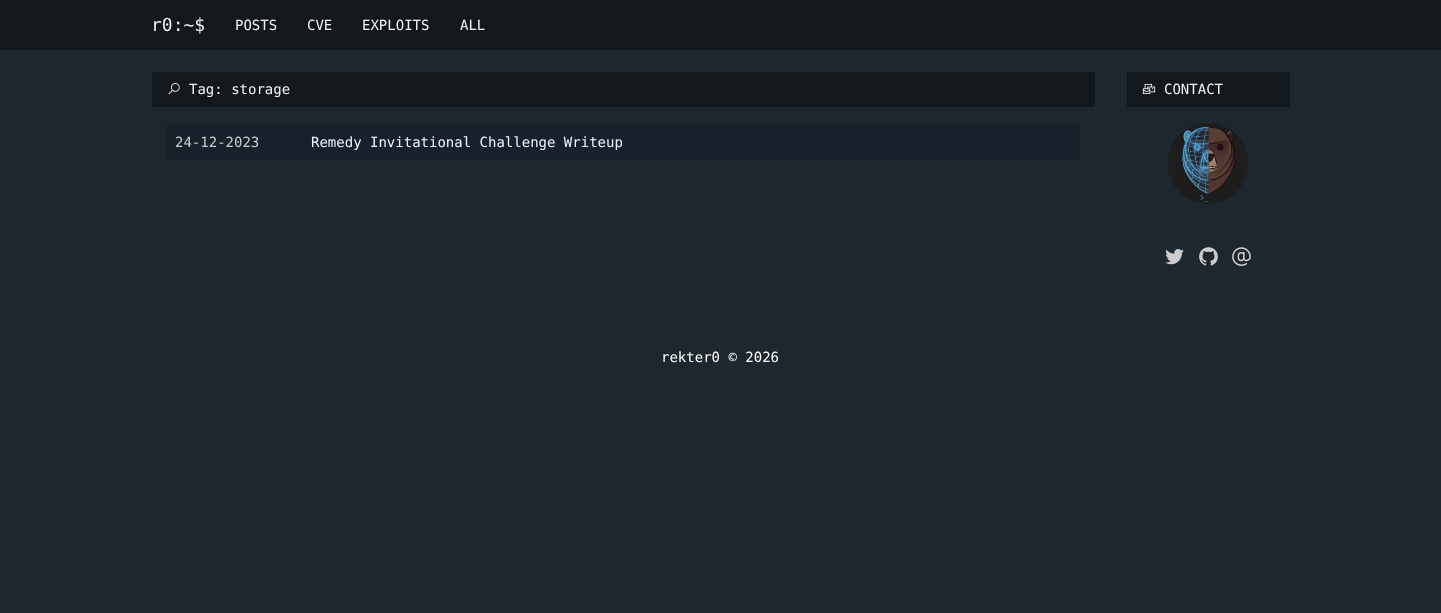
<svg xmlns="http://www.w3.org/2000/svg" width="1441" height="613">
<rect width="100%" height="100%" fill="#1d272d"/>
<rect width="1441" height="50" fill="#12181c"/>
<text x="151" y="31" style="font-family:DejaVu Sans Mono;font-size:18px;fill:#edf4fb">r0:~$</text>
<text x="235" y="30" style="font-family:DejaVu Sans Mono;font-size:14px;fill:#edf4fb">POSTS</text>
<text x="307" y="30" style="font-family:DejaVu Sans Mono;font-size:14px;fill:#edf4fb">CVE</text>
<text x="362" y="30" style="font-family:DejaVu Sans Mono;font-size:14px;fill:#edf4fb">EXPLOITS</text>
<text x="460" y="30" style="font-family:DejaVu Sans Mono;font-size:14px;fill:#edf4fb">ALL</text>
<rect x="152" y="72" width="943" height="35" fill="#12181c"/>
<image x="168" y="83" width="12" height="12" href="media/1.png"/>
<text x="189" y="94" style="font-family:DejaVu Sans Mono;font-size:14px;fill:#edf4fb">Tag: storage</text>
<rect x="167" y="124" width="913" height="36" fill="#16212c"/>
<text x="175" y="147" style="font-family:DejaVu Sans Mono;font-size:14px;fill:#ccc">24-12-2023</text>
<text x="311" y="147" style="font-family:DejaVu Sans Mono;font-size:14px;fill:#edf4fb">Remedy Invitational Challenge Writeup</text>
<rect x="1127" y="72" width="163" height="35" fill="#12181c"/>
<image x="1142" y="83" width="14" height="11" href="media/2.png"/>
<text x="1164" y="94" style="font-family:DejaVu Sans Mono;font-size:14px;fill:#edf4fb">CONTACT</text>
<image x="1168" y="123" width="80" height="81" href="media/3.png"/>
<image x="1165" y="249" width="19" height="16" href="media/4.png"/>
<image x="1199" y="247" width="19" height="19" href="media/5.png"/>
<image x="1232" y="247" width="19" height="19" href="media/6.png"/>
<text x="661" y="362" style="font-family:DejaVu Sans Mono;font-size:14px;fill:#fff">rekter0 © 2026</text>
</svg>
